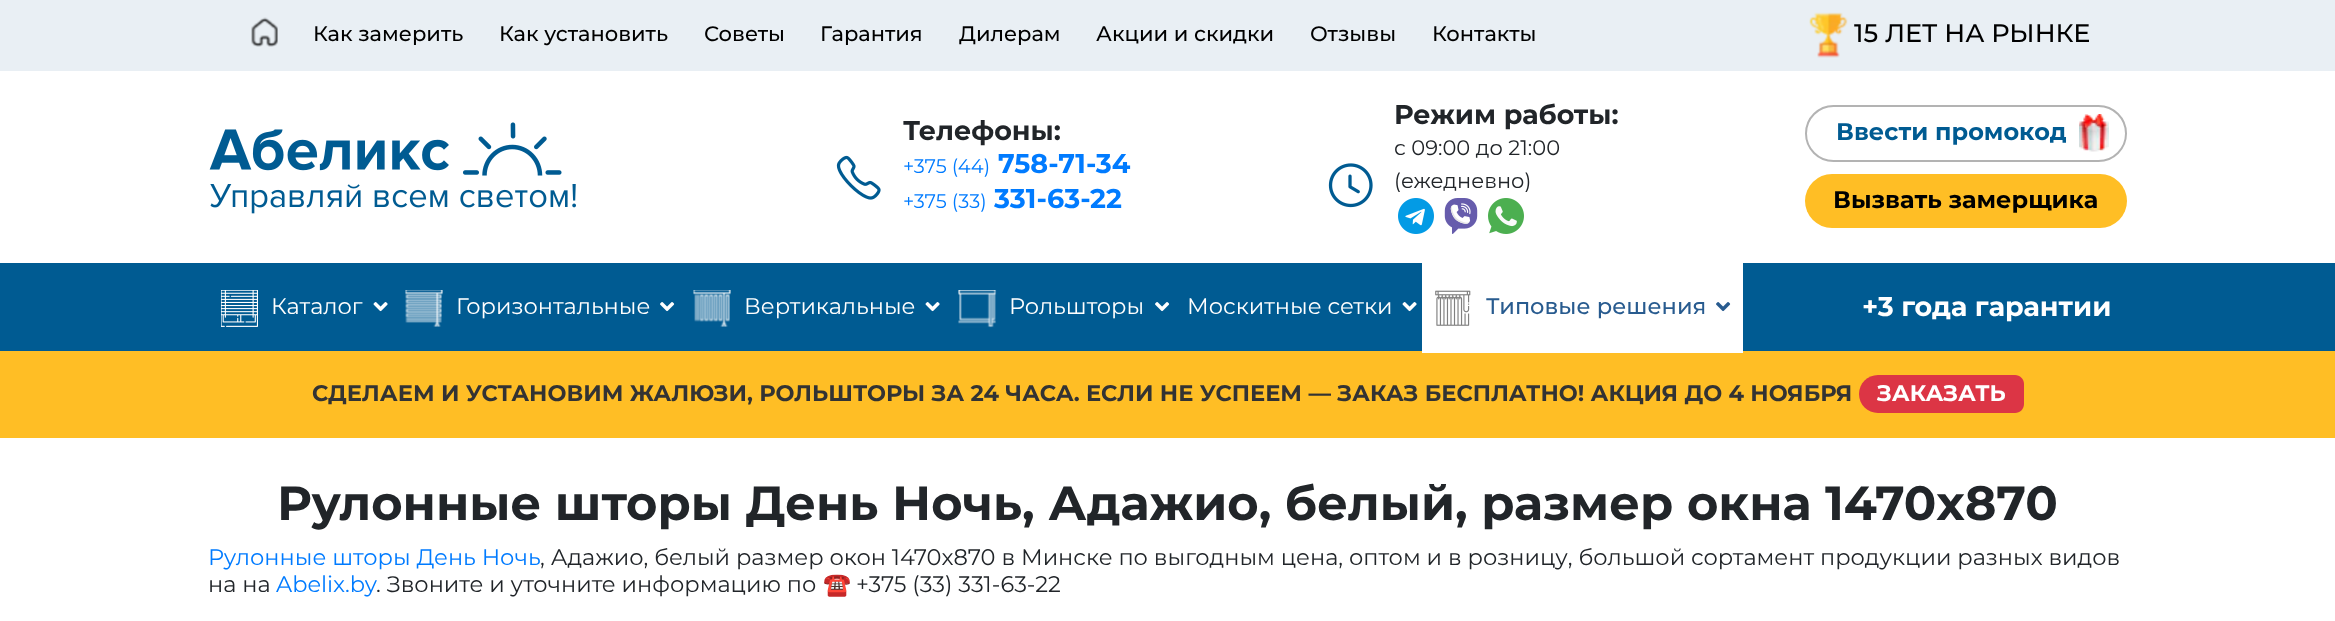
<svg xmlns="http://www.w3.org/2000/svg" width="2335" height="621">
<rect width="100%" height="100%" fill="#fff"/>
<rect width="2335" height="71" fill="#e9eff4"/>
<image x="251" y="17" width="27" height="30" href="media/1.png"/>
<text x="313" y="41" style="font-family:Montserrat;font-size:21px;font-weight:500;fill:#000">Как замерить</text>
<text x="499" y="41" style="font-family:Montserrat;font-size:21px;font-weight:500;fill:#000">Как установить</text>
<text x="704" y="41" style="font-family:Montserrat;font-size:21px;font-weight:500;fill:#000">Советы</text>
<text x="820" y="41" style="font-family:Montserrat;font-size:21px;font-weight:500;fill:#000">Гарантия</text>
<text x="959" y="41" style="font-family:Montserrat;font-size:21px;font-weight:500;fill:#000">Дилерам</text>
<text x="1096" y="41" style="font-family:Montserrat;font-size:21px;font-weight:500;fill:#000">Акции и скидки</text>
<text x="1310" y="41" style="font-family:Montserrat;font-size:21px;font-weight:500;fill:#000">Отзывы</text>
<text x="1432" y="41" style="font-family:Montserrat;font-size:21px;font-weight:500;fill:#000">Контакты</text>
<image x="1809" y="12" width="39" height="46" href="media/2.png"/>
<text x="1854" y="42" style="font-family:Montserrat;font-size:25.5px;font-weight:500;fill:#000">15 ЛЕТ НА РЫНКЕ</text>
<image x="209" y="122" width="367" height="92" href="media/3.png"/>
<image x="836" y="155" width="45" height="45" href="media/4.png"/>
<text x="903" y="140" style="font-family:Montserrat;font-size:27px;font-weight:bold;fill:#212529">Телефоны:</text>
<text x="903" y="173" style="font-family:Montserrat;font-size:19.5px;fill:#007bff">+375 (44)</text>
<text x="998" y="173" style="font-family:Montserrat;font-size:27px;font-weight:bold;fill:#007bff">758-71-34</text>
<text x="903" y="208" style="font-family:Montserrat;font-size:19.5px;fill:#007bff">+375 (33)</text>
<text x="994" y="208" style="font-family:Montserrat;font-size:27px;font-weight:bold;fill:#007bff">331-63-22</text>
<image x="1328" y="163" width="45" height="45" href="media/5.png"/>
<text x="1394" y="124" style="font-family:Montserrat;font-size:27px;font-weight:bold;fill:#212529">Режим работы:</text>
<text x="1394" y="155" style="font-family:Montserrat;font-size:21px;fill:#212529">с 09:00 до 21:00</text>
<text x="1394" y="188" style="font-family:Montserrat;font-size:21px;fill:#212529">(ежедневно)</text>
<image x="1398" y="198" width="36" height="36" href="media/6.png"/>
<image x="1444" y="198" width="34" height="36" href="media/7.png"/>
<image x="1488" y="198" width="36" height="36" href="media/8.png"/>
<image x="2079" y="114" width="30" height="38" href="media/9.png"/>
<rect x="1806" y="106" width="320" height="55" rx="27.5" fill="none" stroke="#b3b3b3" stroke-width="2"/>
<text x="1836" y="140" style="font-family:Montserrat;font-size:24px;font-weight:bold;fill:#005b92">Ввести промокод</text>
<rect x="1805" y="174" width="322" height="54" rx="27" fill="#ffbe25"/>
<text x="1833" y="208" style="font-family:Montserrat;font-size:24px;font-weight:bold;fill:#000">Вызвать замерщика</text>
<rect y="263" width="2335" height="88" fill="#005b92"/>
<image x="221" y="290" width="37" height="37" href="media/10.png"/>
<text x="271" y="314" style="font-family:Montserrat;font-size:22.5px;fill:#fff">Каталог</text>
<image x="373" y="302" width="15" height="10" href="media/11.png"/>
<image x="405" y="290" width="38" height="37" href="media/12.png"/>
<text x="456" y="314" style="font-family:Montserrat;font-size:22.5px;fill:#fff">Горизонтальные</text>
<image x="660" y="302" width="15" height="10" href="media/13.png"/>
<image x="693" y="290" width="38" height="37" href="media/14.png"/>
<text x="744" y="314" style="font-family:Montserrat;font-size:22.5px;fill:#fff">Вертикальные</text>
<image x="925" y="302" width="15" height="10" href="media/11.png"/>
<image x="958" y="290" width="39" height="38" href="media/15.png"/>
<text x="1009" y="314" style="font-family:Montserrat;font-size:22.5px;fill:#fff">Рольшторы</text>
<image x="1155" y="302" width="15" height="10" href="media/13.png"/>
<text x="1187" y="314" style="font-family:Montserrat;font-size:22.5px;fill:#fff">Москитные сетки</text>
<image x="1402" y="302" width="15" height="10" href="media/11.png"/>
<rect y="351" width="2335" height="87" fill="#ffbe25"/>
<rect x="1422" y="263" width="321" height="90" fill="#fff"/>
<image x="1435" y="290" width="36" height="36" href="media/16.png"/>
<text x="1486" y="314" style="font-family:Montserrat;font-size:22.5px;font-weight:500;fill:#285b8f">Типовые решения</text>
<image x="1716" y="302" width="15" height="10" href="media/17.png"/>
<text x="1862" y="316" style="font-family:Montserrat;font-size:27px;font-weight:bold;fill:#fff">+3 года гарантии</text>
<text x="312" y="401" style="font-family:Montserrat;font-size:22.5px;font-weight:bold;fill:#333">СДЕЛАЕМ И УСТАНОВИМ ЖАЛЮЗИ, РОЛЬШТОРЫ ЗА 24 ЧАСА. ЕСЛИ НЕ УСПЕЕМ — ЗАКАЗ БЕСПЛАТНО! АКЦИЯ ДО 4 НОЯБРЯ</text>
<path d="M1878 375h128v38h-128c-10.5 0-19-8.5-19-19c0-10.5 8.5-19 19-19z" fill="#dc3545"/>
<text x="1877" y="401" style="font-family:Montserrat;font-size:22.5px;font-weight:bold;fill:#fff">ЗАКАЗАТЬ</text>
<path d="M2006 375h9c5 0 9 4 9 9v20c0 5-4 9-9 9h-9z" fill="#dc3545"/>
<text x="277" y="520" style="font-family:Montserrat;font-size:48px;font-weight:bold;fill:#212529">Рулонные шторы День Ночь, Адажио, белый, размер окна 1470x870</text>
<text x="208" y="565" style="font-family:Montserrat;font-size:22.5px;fill:#007bff">Рулонные шторы День Ночь</text>
<text x="540" y="565" style="font-family:Montserrat;font-size:22.5px;fill:#212529">, Адажио, белый размер окон 1470x870 в Минске по выгодным цена, оптом и в розницу, большой сортамент продукции разных видов</text>
<text x="208" y="592" style="font-family:Montserrat;font-size:22.5px;fill:#212529">на на</text>
<text x="276" y="592" style="font-family:Montserrat;font-size:22.5px;fill:#007bff">Abelix.by</text>
<text x="376" y="592" style="font-family:Montserrat;font-size:22.5px;fill:#212529">. Звоните и уточните информацию по</text>
<text x="823" y="592" style="font-family:Noto Color Emoji;font-size:22.5px;fill:#212529">☎️</text>
<text x="856" y="592" style="font-family:Montserrat;font-size:22.5px;fill:#212529">+375 (33) 331-63-22</text>
</svg>
